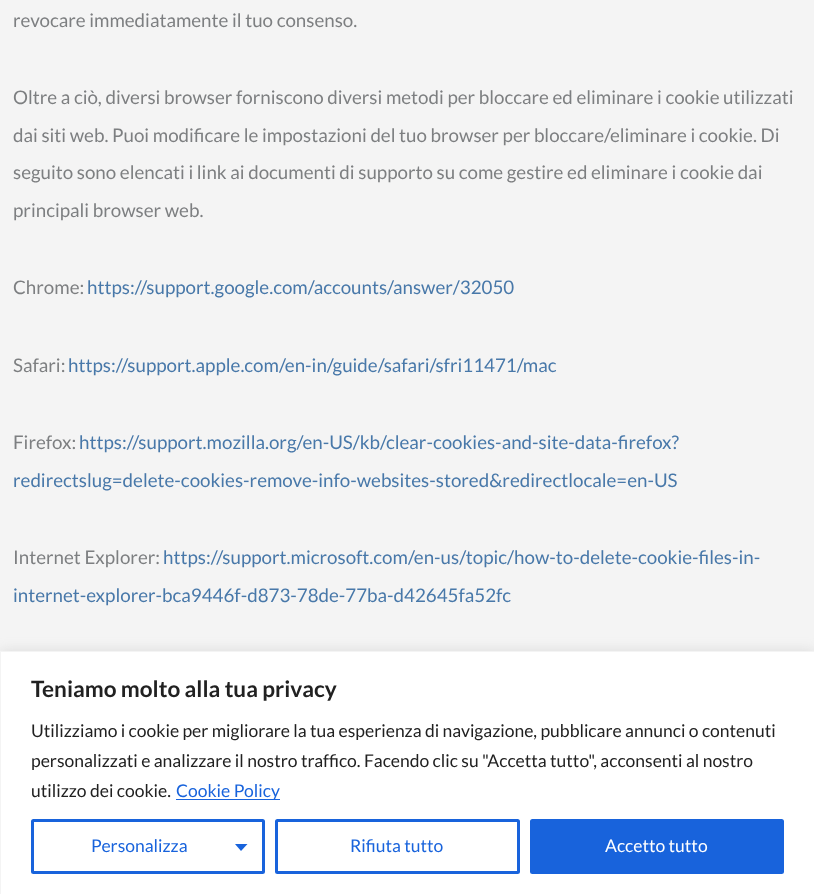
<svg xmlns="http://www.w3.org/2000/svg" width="814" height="894">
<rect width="100%" height="100%" fill="#f4f4f4"/>
<text x="13" y="27" style="font-family:Lato;font-size:18.75px;fill:#7d7f81">revocare immediatamente il tuo consenso.</text>
<text x="13" y="104" style="font-family:Lato;font-size:18.75px;fill:#7d7f81">Oltre a ciò, diversi browser forniscono diversi metodi per bloccare ed eliminare i cookie utilizzati</text>
<text x="13" y="142" style="font-family:Lato;font-size:18.75px;fill:#7d7f81">dai siti web. Puoi modificare le impostazioni del tuo browser per bloccare/eliminare i cookie. Di</text>
<text x="13" y="179" style="font-family:Lato;font-size:18.75px;fill:#7d7f81">seguito sono elencati i link ai documenti di supporto su come gestire ed eliminare i cookie dai</text>
<text x="13" y="217" style="font-family:Lato;font-size:18.75px;fill:#7d7f81">principali browser web.</text>
<text x="13" y="294" style="font-family:Lato;font-size:18.75px;fill:#7d7f81">Chrome:</text>
<text x="87" y="294" style="font-family:Lato;font-size:18.75px;fill:#4878a9">https://support.google.com/accounts/answer/32050</text>
<text x="13" y="372" style="font-family:Lato;font-size:18.75px;fill:#7d7f81">Safari:</text>
<text x="68" y="372" style="font-family:Lato;font-size:18.75px;fill:#4878a9">https://support.apple.com/en-in/guide/safari/sfri11471/mac</text>
<text x="13" y="449" style="font-family:Lato;font-size:18.75px;fill:#7d7f81">Firefox:</text>
<text x="79" y="449" style="font-family:Lato;font-size:18.75px;fill:#4878a9">https://support.mozilla.org/en-US/kb/clear-cookies-and-site-data-firefox?</text>
<text x="13" y="487" style="font-family:Lato;font-size:18.75px;fill:#4878a9">redirectslug=delete-cookies-remove-info-websites-stored&amp;redirectlocale=en-US</text>
<text x="13" y="564" style="font-family:Lato;font-size:18.75px;fill:#7d7f81">Internet Explorer:</text>
<text x="163" y="564" style="font-family:Lato;font-size:18.75px;fill:#4878a9">https://support.microsoft.com/en-us/topic/how-to-delete-cookie-files-in-</text>
<text x="13" y="602" style="font-family:Lato;font-size:18.75px;fill:#4878a9">internet-explorer-bca9446f-d873-78de-77ba-d42645fa52fc</text>
<rect y="650" width="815" height="244" fill="#acabab4d" filter="blur(6px)"/>
<rect x="0.5" y="651.5" width="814" height="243" fill="#fff" stroke="#f4f4f4"/>
<text x="31" y="697" style="font-family:Lato;font-size:22.5px;font-weight:bold;fill:#212121">Teniamo molto alla tua privacy</text>
<text x="31" y="737" style="font-family:Lato;font-size:17.5px;fill:#212121">Utilizziamo i cookie per migliorare la tua esperienza di navigazione, pubblicare annunci o contenuti</text>
<text x="31" y="767" style="font-family:Lato;font-size:17.5px;fill:#212121">personalizzati e analizzare il nostro traffico. Facendo clic su "Accetta tutto", acconsenti al nostro</text>
<text x="31" y="797" style="font-family:Lato;font-size:17.5px;fill:#212121">utilizzo dei cookie.</text>
<rect x="176" y="799" width="104" height="1" fill="#1863dc"/>
<text x="176" y="797" style="font-family:Lato;font-size:17.5px;fill:#1863dc">Cookie Policy</text>
<rect x="32.5" y="820.5" width="231" height="52" rx="1" fill="none" stroke="#1863dc" stroke-width="3"/>
<text x="91" y="852" style="font-family:Lato;font-size:17.5px;fill:#1863dc">Personalizza</text>
<path d="M235 844h12.5l-6.5 7z" fill="#1863dc"/>
<rect x="276.5" y="820.5" width="242" height="52" rx="1" fill="none" stroke="#1863dc" stroke-width="3"/>
<text x="350" y="852" style="font-family:Lato;font-size:17.5px;fill:#1863dc">Rifiuta tutto</text>
<rect x="531.5" y="820.5" width="251" height="52" rx="1" fill="#1863dc" stroke="#1863dc" stroke-width="3"/>
<text x="605" y="852" style="font-family:Lato;font-size:17.5px;fill:#fff">Accetto tutto</text>
</svg>
